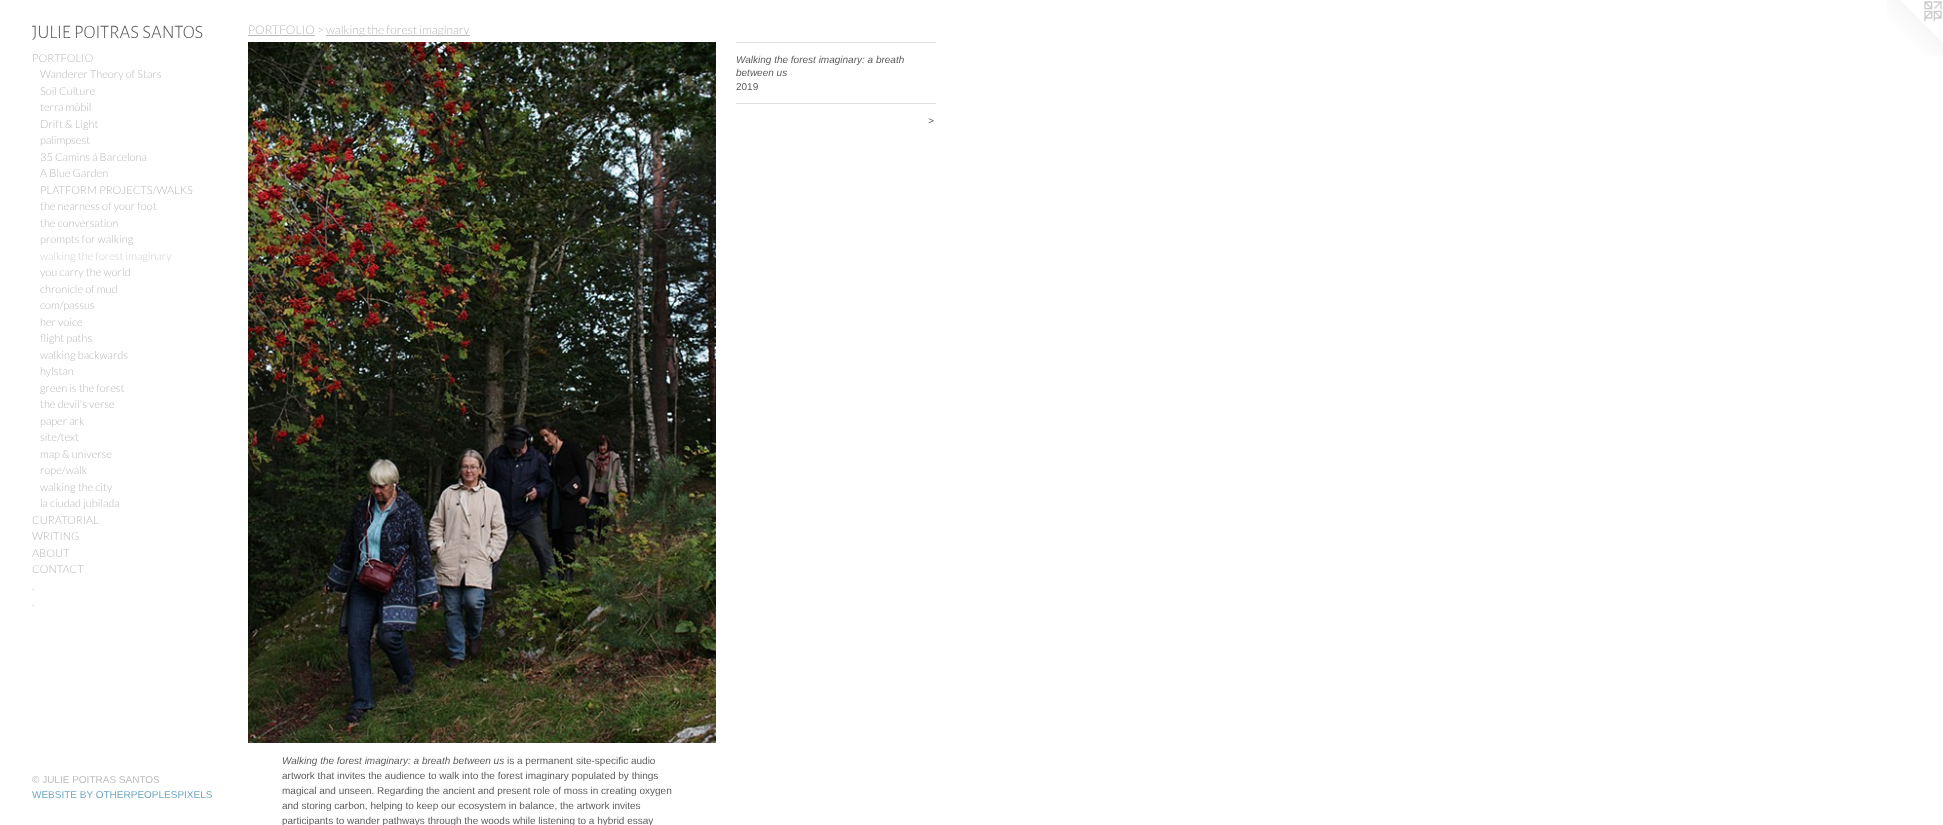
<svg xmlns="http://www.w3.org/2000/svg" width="1943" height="825">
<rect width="100%" height="100%" fill="#fff"/>
<text x="32" y="38" style="font-family:Alegreya Sans SC;font-size:19px;font-weight:300;fill:#5b5d5b">JULIE POITRAS SANTOS</text>
<text x="32" y="62" style="font-family:Lato;font-size:11px;font-weight:300;fill:#b7b8b7">PORTFOLIO</text>
<text x="40" y="78" style="font-family:Lato;font-size:11px;font-weight:300;fill:#b7b8b7">Wanderer Theory of Stars</text>
<text x="40" y="95" style="font-family:Lato;font-size:11px;font-weight:300;fill:#b7b8b7">Soil Culture</text>
<text x="40" y="111" style="font-family:Lato;font-size:11px;font-weight:300;fill:#b7b8b7">terra mòbil</text>
<text x="40" y="128" style="font-family:Lato;font-size:11px;font-weight:300;fill:#b7b8b7">Drift &amp; Light</text>
<text x="40" y="144" style="font-family:Lato;font-size:11px;font-weight:300;fill:#b7b8b7">palimpsest</text>
<text x="40" y="161" style="font-family:Lato;font-size:11px;font-weight:300;fill:#b7b8b7">35 Camins á Barcelona</text>
<text x="40" y="177" style="font-family:Lato;font-size:11px;font-weight:300;fill:#b7b8b7">A Blue Garden</text>
<text x="40" y="194" style="font-family:Lato;font-size:11px;font-weight:300;fill:#b7b8b7">PLATFORM PROJECTS/WALKS</text>
<text x="40" y="210" style="font-family:Lato;font-size:11px;font-weight:300;fill:#b7b8b7">the nearness of your foot</text>
<text x="40" y="227" style="font-family:Lato;font-size:11px;font-weight:300;fill:#b7b8b7">the conversation</text>
<text x="40" y="243" style="font-family:Lato;font-size:11px;font-weight:300;fill:#b7b8b7">prompts for walking</text>
<text x="40" y="260" style="font-family:Lato;font-size:11px;font-weight:300;fill:#d1d1d1">walking the forest imaginary</text>
<text x="40" y="276" style="font-family:Lato;font-size:11px;font-weight:300;fill:#b7b8b7">you carry the world</text>
<text x="40" y="293" style="font-family:Lato;font-size:11px;font-weight:300;fill:#b7b8b7">chronicle of mud</text>
<text x="40" y="309" style="font-family:Lato;font-size:11px;font-weight:300;fill:#b7b8b7">com/passus</text>
<text x="40" y="326" style="font-family:Lato;font-size:11px;font-weight:300;fill:#b7b8b7">her voice</text>
<text x="40" y="342" style="font-family:Lato;font-size:11px;font-weight:300;fill:#b7b8b7">flight paths</text>
<text x="40" y="359" style="font-family:Lato;font-size:11px;font-weight:300;fill:#b7b8b7">walking backwards</text>
<text x="40" y="375" style="font-family:Lato;font-size:11px;font-weight:300;fill:#b7b8b7">hylstan</text>
<text x="40" y="392" style="font-family:Lato;font-size:11px;font-weight:300;fill:#b7b8b7">green is the forest</text>
<text x="40" y="408" style="font-family:Lato;font-size:11px;font-weight:300;fill:#b7b8b7">the devil's verse</text>
<text x="40" y="425" style="font-family:Lato;font-size:11px;font-weight:300;fill:#b7b8b7">paper ark</text>
<text x="40" y="441" style="font-family:Lato;font-size:11px;font-weight:300;fill:#b7b8b7">site/text</text>
<text x="40" y="458" style="font-family:Lato;font-size:11px;font-weight:300;fill:#b7b8b7">map &amp; universe</text>
<text x="40" y="474" style="font-family:Lato;font-size:11px;font-weight:300;fill:#b7b8b7">rope/walk</text>
<text x="40" y="491" style="font-family:Lato;font-size:11px;font-weight:300;fill:#b7b8b7">walking the city</text>
<text x="40" y="507" style="font-family:Lato;font-size:11px;font-weight:300;fill:#b7b8b7">la ciudad jubilada</text>
<text x="32" y="524" style="font-family:Lato;font-size:11px;font-weight:300;fill:#b7b8b7">CURATORIAL</text>
<text x="32" y="540" style="font-family:Lato;font-size:11px;font-weight:300;fill:#b7b8b7">WRITING</text>
<text x="32" y="557" style="font-family:Lato;font-size:11px;font-weight:300;fill:#b7b8b7">ABOUT</text>
<text x="32" y="573" style="font-family:Lato;font-size:11px;font-weight:300;fill:#b7b8b7">CONTACT</text>
<text x="32" y="590" style="font-family:Lato;font-size:11px;font-weight:300;fill:#b7b8b7">.</text>
<text x="32" y="606" style="font-family:Lato;font-size:11px;font-weight:300;fill:#b7b8b7">.</text>
<text x="32" y="783" style="font-family:Liberation Sans;font-size:10px;fill:#bdbdbd">© JULIE POITRAS SANTOS</text>
<text x="32" y="798" style="font-family:Liberation Sans;font-size:10px;fill:#70a8c0">WEBSITE BY OTHERPEOPLESPIXELS</text>
<text x="248" y="34" style="font-family:Lato;font-size:12px;font-weight:300;fill:#b7b8b7">PORTFOLIO &gt;</text>
<rect x="248" y="35" width="67" height="1" fill="#b7b8b7"/>
<rect x="326" y="35" width="144" height="1" fill="#b7b8b7"/>
<text x="326" y="34" style="font-family:Lato;font-size:12px;font-weight:300;fill:#b7b8b7">walking the forest imaginary</text>
<image x="248" y="42" width="468" height="701" href="media/1.png"/>
<rect x="736" y="42" width="200" height="1" fill="#dedfde"/>
<text x="736" y="63" style="font-family:Liberation Sans;font-size:10px;font-style:italic;fill:#5b5d5b">Walking the forest imaginary: a breath</text>
<text x="736" y="76" style="font-family:Liberation Sans;font-size:10px;font-style:italic;fill:#5b5d5b">between us</text>
<text x="736" y="90" style="font-family:Liberation Sans;font-size:10px;fill:#5b5d5b">2019</text>
<rect x="736" y="103" width="200" height="1" fill="#dedfde"/>
<text x="928" y="124" style="font-family:Liberation Sans;font-size:10px;font-style:italic;letter-spacing:1px;fill:#5b5d5b">&gt;</text>
<text x="282" y="764" style="font-family:Liberation Sans;font-size:10px;font-style:italic;fill:#5b5d5b">Walking the forest imaginary: a breath between us</text>
<text x="507" y="764" style="font-family:Liberation Sans;font-size:10px;fill:#5b5d5b">is a permanent site-specific audio</text>
<text x="282" y="779" style="font-family:Liberation Sans;font-size:10px;fill:#5b5d5b">artwork that invites the audience to walk into the forest imaginary populated by things</text>
<text x="282" y="794" style="font-family:Liberation Sans;font-size:10px;fill:#5b5d5b">magical and unseen. Regarding the ancient and present role of moss in creating oxygen</text>
<text x="282" y="809" style="font-family:Liberation Sans;font-size:10px;fill:#5b5d5b">and storing carbon, helping to keep our ecosystem in balance, the artwork invites</text>
<text x="282" y="824" style="font-family:Liberation Sans;font-size:10px;fill:#5b5d5b">participants to wander pathways through the woods while listening to a hybrid essay</text>
<image x="1887" y="0" width="56" height="56" href="media/2.png"/>
</svg>
